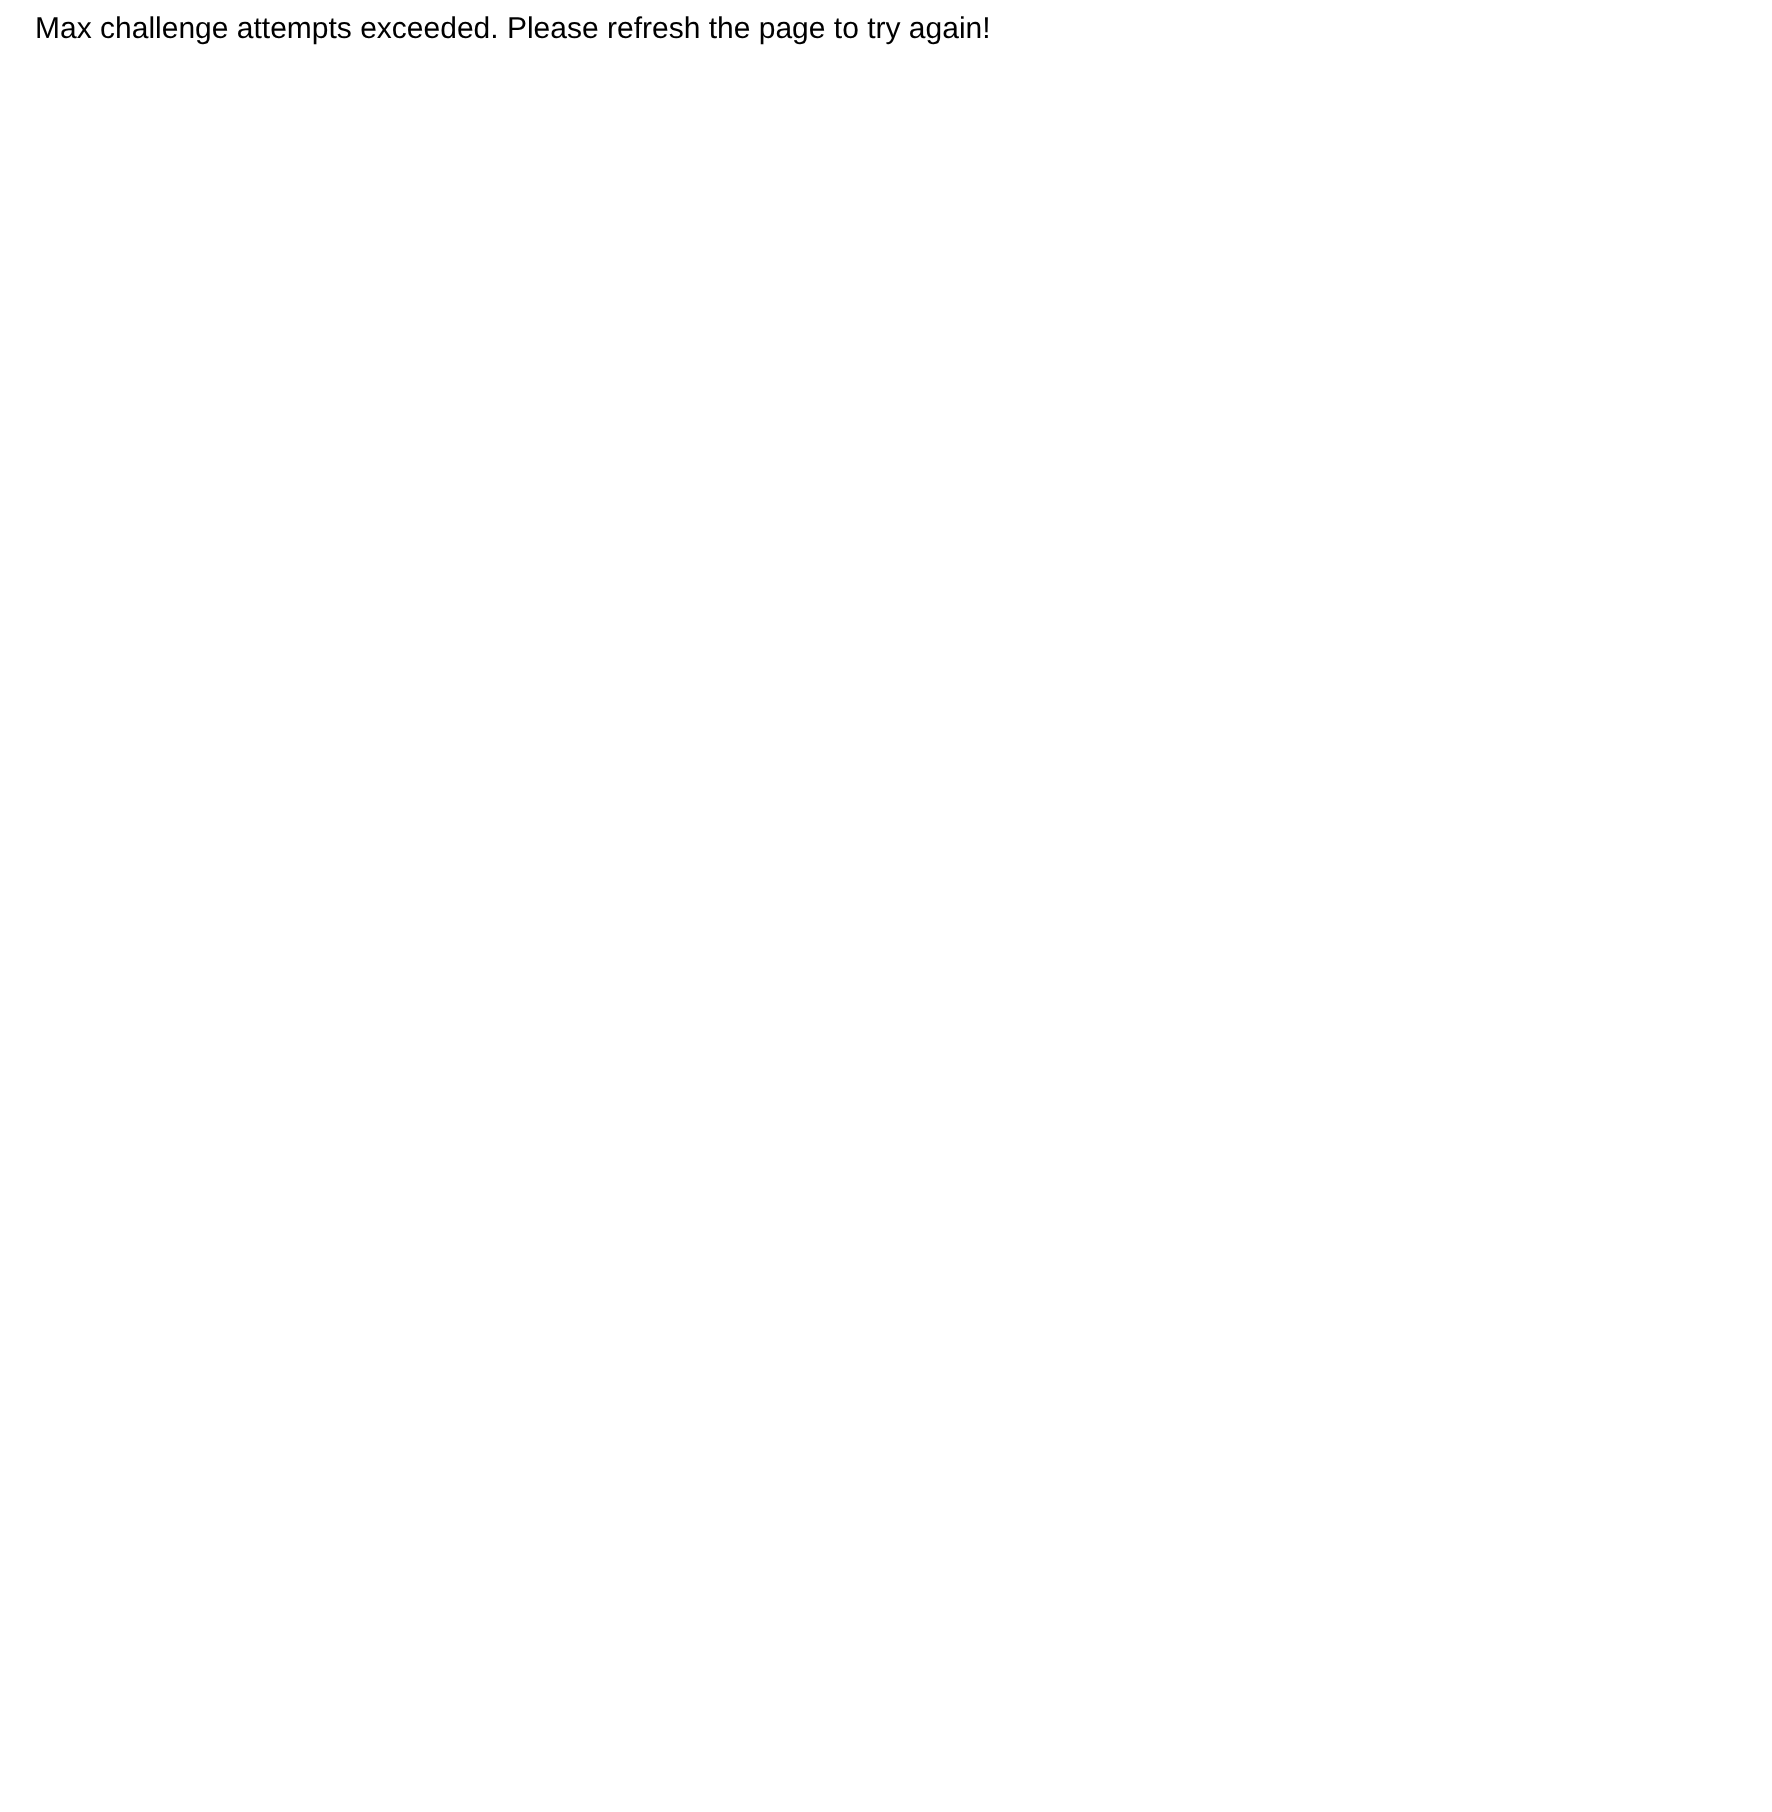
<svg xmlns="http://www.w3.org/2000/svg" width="1772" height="1812">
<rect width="100%" height="100%" fill="#fff"/>
<text x="35" y="38" style="font-family:Liberation Sans;font-size:30px;fill:#000">Max challenge attempts exceeded. Please refresh the page to try again!</text>
</svg>
